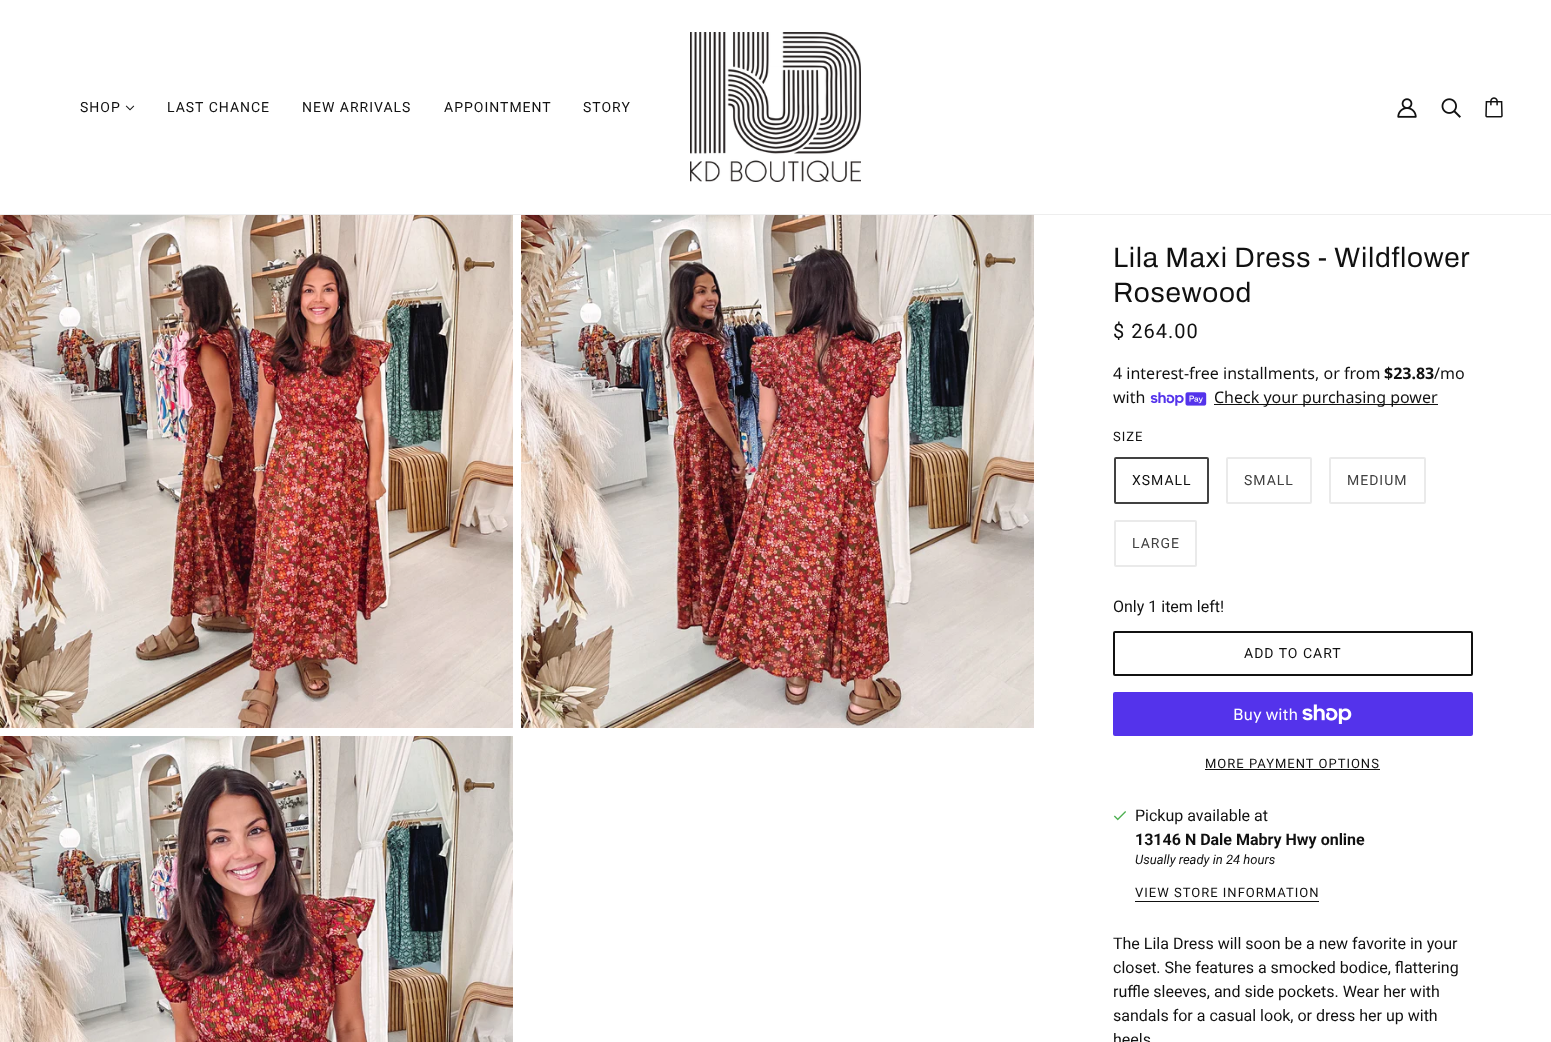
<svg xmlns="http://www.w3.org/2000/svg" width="1551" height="1042">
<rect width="100%" height="100%" fill="#fff"/>
<rect y="214" width="1551" height="1" fill="#eee"/>
<text x="80" y="112" style="font-family:Roboto;font-size:14px;letter-spacing:1px;fill:#111">SHOP</text>
<image x="125" y="105" width="10" height="6" href="media/1.png"/>
<text x="167" y="112" style="font-family:Roboto;font-size:14px;letter-spacing:1px;fill:#111">LAST CHANCE</text>
<text x="302" y="112" style="font-family:Roboto;font-size:14px;letter-spacing:1px;fill:#111">NEW ARRIVALS</text>
<text x="444" y="112" style="font-family:Roboto;font-size:14px;letter-spacing:1px;fill:#111">APPOINTMENT</text>
<text x="583" y="112" style="font-family:Roboto;font-size:14px;letter-spacing:1px;fill:#111">STORY</text>
<image x="690" y="32" width="171" height="150" href="media/2.png"/>
<image x="1397" y="98" width="20" height="20" href="media/3.png"/>
<image x="1441" y="98" width="20" height="20" href="media/4.png"/>
<image x="1485" y="97" width="18" height="21" href="media/5.png"/>
<image x="0" y="215" width="513" height="513" href="media/6.png"/>
<image x="521" y="215" width="513" height="513" href="media/7.png"/>
<image x="0" y="736" width="513" height="306" href="media/8.png"/>
<text x="1113" y="267" style="font-family:Archivo;font-size:28px;letter-spacing:0.7px;fill:#111">Lila Maxi Dress - Wildflower</text>
<text x="1113" y="302" style="font-family:Archivo;font-size:28px;letter-spacing:0.7px;fill:#111">Rosewood</text>
<text x="1113" y="338" style="font-family:Roboto;font-size:20px;letter-spacing:1px;fill:#111">$ 264.00</text>
<text x="1113" y="379" style="font-family:Noto Sans;font-size:16px;fill:#111">4 interest-free installments, or from</text>
<text x="1384" y="379" style="font-family:Noto Sans;font-size:16px;font-weight:bold;fill:#111">$23.83</text>
<text x="1434" y="379" style="font-family:Noto Sans;font-size:16px;fill:#111">/mo</text>
<text x="1113" y="403" style="font-family:Noto Sans;font-size:16px;fill:#111">with</text>
<image x="1150" y="392" width="57" height="14" href="media/9.png"/>
<rect x="1214" y="404" width="224" height="1" fill="#111"/>
<text x="1214" y="403" style="font-family:Noto Sans;font-size:16px;fill:#111">Check your purchasing power</text>
<text x="1113" y="441" style="font-family:Roboto;font-size:13px;letter-spacing:1px;fill:#111">SIZE</text>
<rect x="1115" y="458" width="93" height="45" rx="1" fill="none" stroke="#414141" stroke-width="2"/>
<text x="1132" y="485" style="font-family:Roboto;font-size:14px;letter-spacing:1px;fill:#111">XSMALL</text>
<rect x="1227" y="458" width="84" height="45" rx="1" fill="none" stroke="#eaeaea" stroke-width="2"/>
<text x="1244" y="485" style="font-family:Roboto;font-size:14px;letter-spacing:1px;fill:#414141">SMALL</text>
<rect x="1330" y="458" width="95" height="45" rx="1" fill="none" stroke="#eaeaea" stroke-width="2"/>
<text x="1347" y="485" style="font-family:Roboto;font-size:14px;letter-spacing:1px;fill:#414141">MEDIUM</text>
<rect x="1115" y="521" width="81" height="45" rx="1" fill="none" stroke="#eaeaea" stroke-width="2"/>
<text x="1132" y="548" style="font-family:Roboto;font-size:14px;letter-spacing:1px;fill:#414141">LARGE</text>
<text x="1113" y="612" style="font-family:Roboto;font-size:16px;fill:#111">Only 1 item left!</text>
<rect x="1114" y="632" width="358" height="43" rx="1" fill="none" stroke="#111" stroke-width="2"/>
<text x="1244" y="658" style="font-family:Roboto;font-size:14px;letter-spacing:1px;fill:#111">ADD TO CART</text>
<rect x="1113" y="692" width="360" height="44" rx="2" fill="#5433eb"/>
<text x="1233" y="720" style="font-family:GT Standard;font-size:16px;fill:#fff">Buy with</text>
<image x="1302" y="704" width="50" height="20" href="media/10.png"/>
<text x="1205" y="768" style="font-family:Roboto;font-size:13px;letter-spacing:1px;fill:#111">MORE PAYMENT OPTIONS</text>
<rect x="1205" y="769" width="175" height="1" fill="#111"/>
<image x="1113" y="811" width="13" height="10" href="media/11.png"/>
<text x="1135" y="821" style="font-family:Roboto;font-size:16px;fill:#111">Pickup available at</text>
<text x="1135" y="845" style="font-family:Roboto;font-size:16px;font-weight:bold;fill:#111">13146 N Dale Mabry Hwy online</text>
<text x="1135" y="864" style="font-family:Roboto;font-size:13px;font-style:italic;fill:#111">Usually ready in 24 hours</text>
<text x="1135" y="897" style="font-family:Roboto;font-size:13px;letter-spacing:1px;fill:#111">VIEW STORE INFORMATION</text>
<rect x="1135" y="901" width="184" height="1" fill="#111"/>
<text x="1113" y="949" style="font-family:Roboto;font-size:16px;fill:#111">The Lila Dress will soon be a new favorite in your</text>
<text x="1113" y="973" style="font-family:Roboto;font-size:16px;fill:#111">closet. She features a smocked bodice, flattering</text>
<text x="1113" y="997" style="font-family:Roboto;font-size:16px;fill:#111">ruffle sleeves, and side pockets. Wear her with</text>
<text x="1113" y="1021" style="font-family:Roboto;font-size:16px;fill:#111">sandals for a casual look, or dress her up with</text>
<text x="1113" y="1045" style="font-family:Roboto;font-size:16px;fill:#111">heels</text>
</svg>
